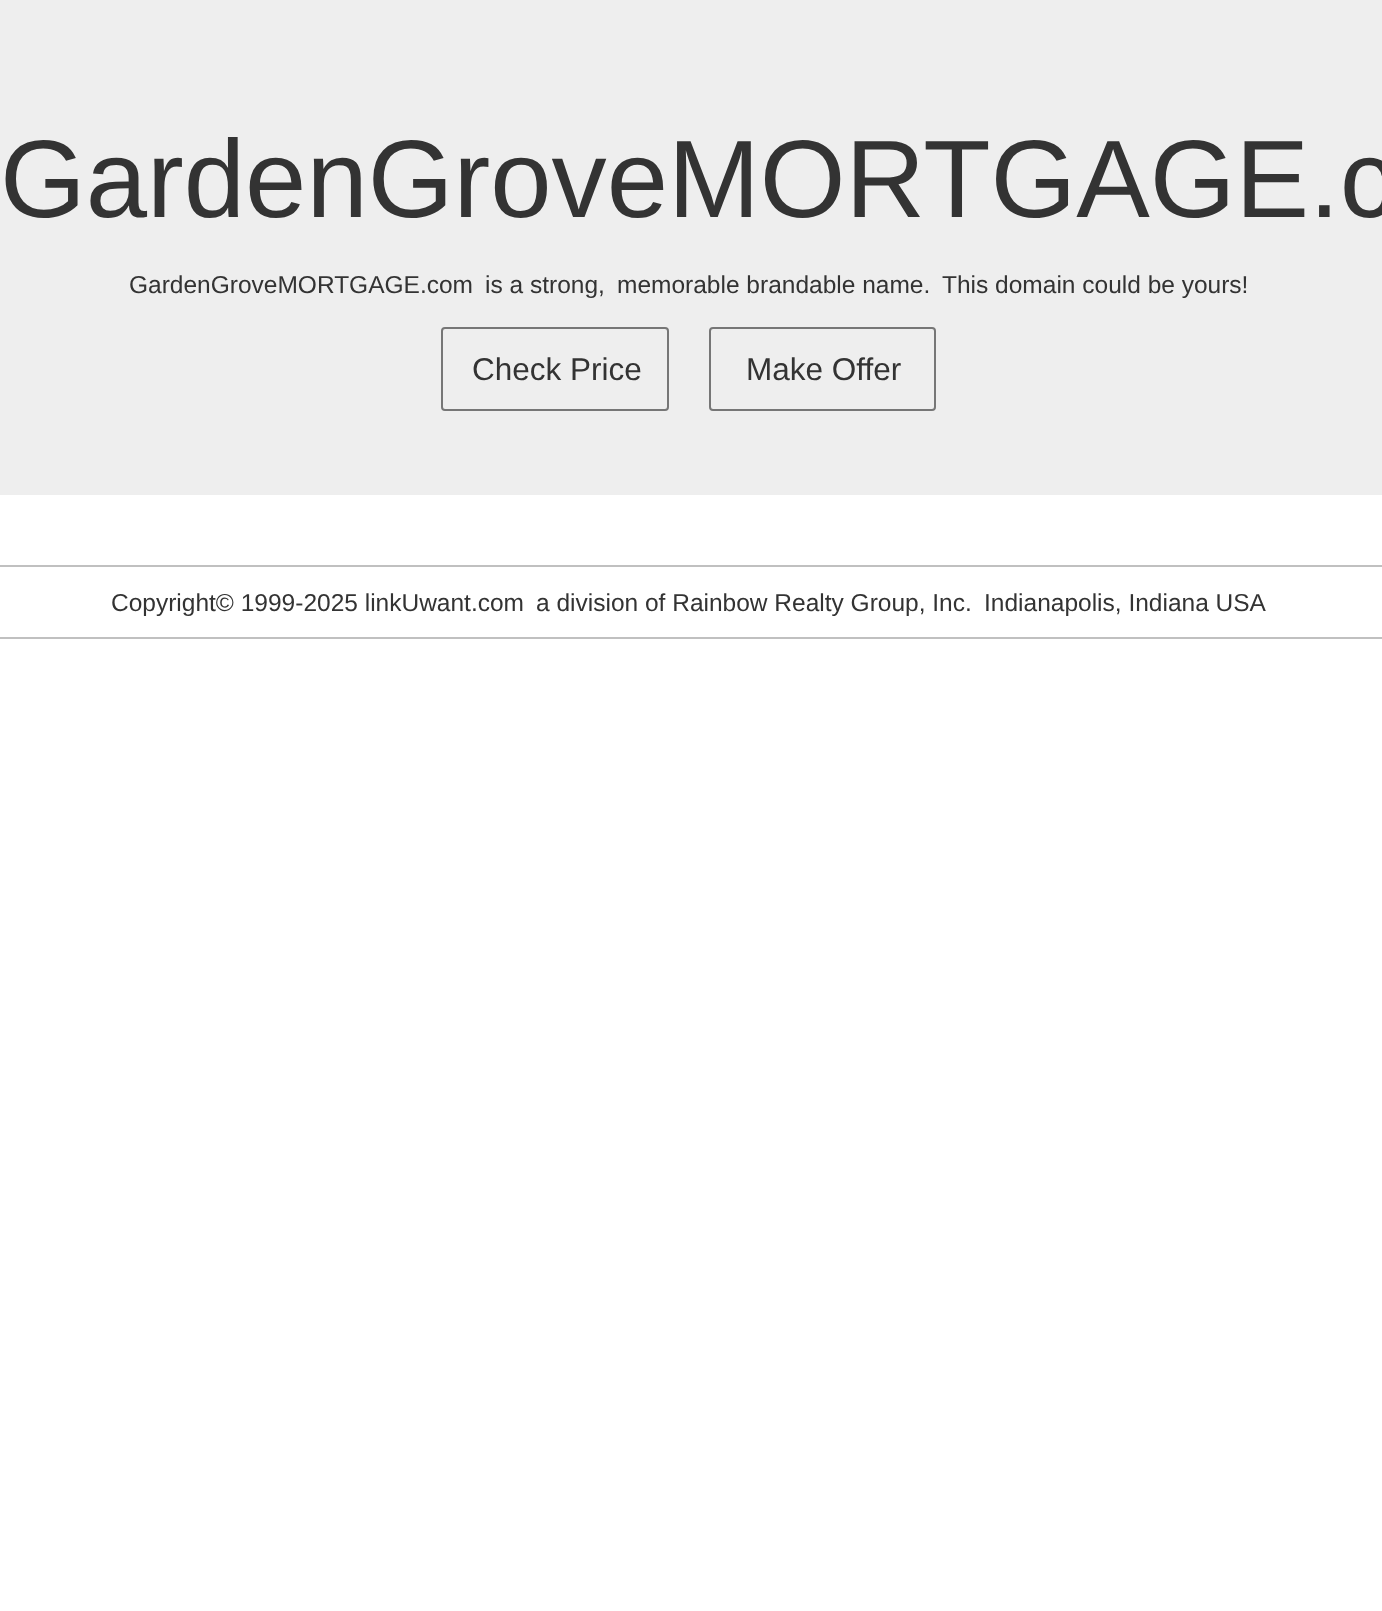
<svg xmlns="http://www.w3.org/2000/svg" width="1382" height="1611">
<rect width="100%" height="100%" fill="#fff"/>
<rect width="1382" height="495" fill="#eee"/>
<text x="0" y="217" style="font-family:Liberation Sans;font-size:110.25px;fill:#333">GardenGroveMORTGAGE.c</text>
<text x="129" y="293" style="font-family:Liberation Sans;font-size:24.5px;fill:#333">GardenGroveMORTGAGE.com</text>
<text x="485" y="293" style="font-family:Liberation Sans;font-size:24.5px;fill:#333">is a strong,</text>
<text x="617" y="293" style="font-family:Liberation Sans;font-size:24.5px;fill:#333">memorable brandable name.</text>
<text x="942" y="293" style="font-family:Liberation Sans;font-size:24.5px;fill:#333">This domain could be yours!</text>
<rect x="442" y="328" width="226" height="82" rx="3" fill="none" stroke="#767676" stroke-width="2"/>
<text x="472" y="380" style="font-family:Liberation Sans;font-size:31.5px;fill:#333">Check Price</text>
<rect x="710" y="328" width="225" height="82" rx="3" fill="none" stroke="#767676" stroke-width="2"/>
<text x="746" y="380" style="font-family:Liberation Sans;font-size:31.5px;fill:#333">Make Offer</text>
<rect y="565" width="1382" height="2" fill="#c0c0c0"/>
<rect y="637" width="1382" height="2" fill="#c0c0c0"/>
<text x="111" y="611" style="font-family:Liberation Sans;font-size:24.5px;fill:#333">Copyright© 1999-2025 linkUwant.com</text>
<text x="536" y="611" style="font-family:Liberation Sans;font-size:24.5px;fill:#333">a division of Rainbow Realty Group, Inc.</text>
<text x="984" y="611" style="font-family:Liberation Sans;font-size:24.5px;fill:#333">Indianapolis, Indiana USA</text>
</svg>
